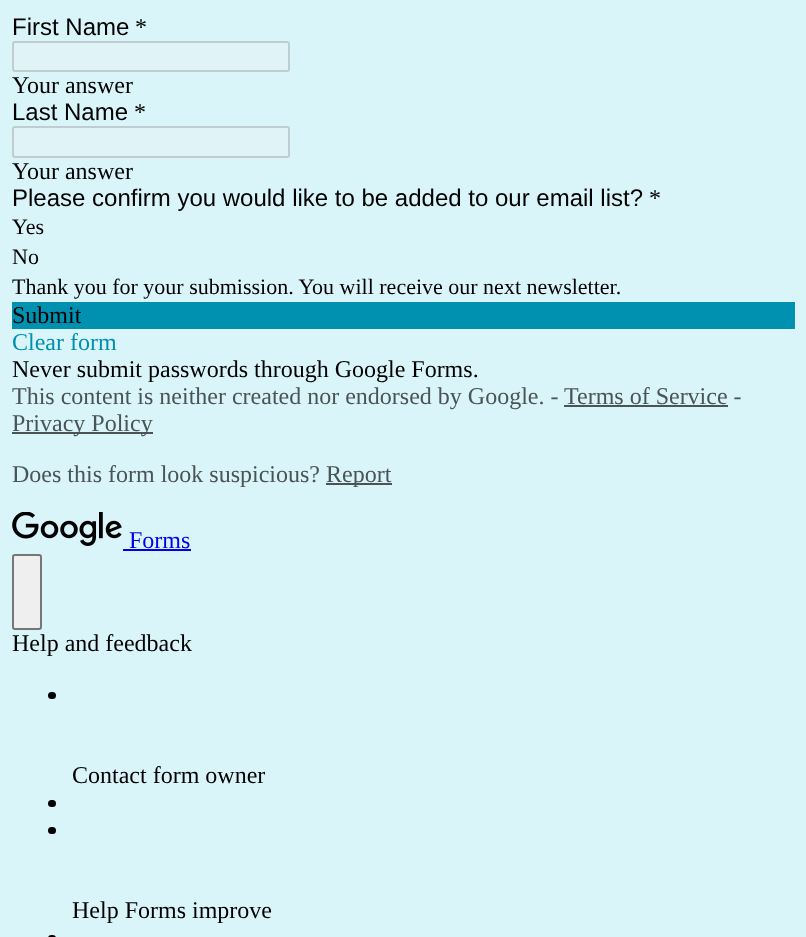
<svg xmlns="http://www.w3.org/2000/svg" width="806" height="937">
<rect width="100%" height="100%" fill="#d9f5f9"/>
<text x="12" y="35" style="font-family:Liberation Sans;font-size:24px;fill:#000">First Name</text>
<text x="135" y="35" style="font-family:Liberation Serif;font-size:24px;fill:#000">*</text>
<rect x="12" y="41" width="278" height="31" rx="3" fill="#e0f3f6"/>
<rect x="13" y="42" width="276" height="29" rx="2" fill="none" stroke="#7676764d" stroke-width="2"/>
<text x="12" y="93" style="font-family:Liberation Serif;font-size:24px;fill:#000">Your answer</text>
<text x="12" y="120" style="font-family:Liberation Sans;font-size:24px;fill:#000">Last Name</text>
<text x="134" y="120" style="font-family:Liberation Serif;font-size:24px;fill:#000">*</text>
<rect x="12" y="126" width="278" height="32" rx="3" fill="#e0f3f6"/>
<rect x="13" y="127" width="276" height="30" rx="2" fill="none" stroke="#7676764d" stroke-width="2"/>
<text x="12" y="179" style="font-family:Liberation Serif;font-size:24px;fill:#000">Your answer</text>
<text x="12" y="206" style="font-family:Liberation Sans;font-size:24px;fill:#000">Please confirm you would like to be added to our email list?</text>
<text x="649" y="206" style="font-family:Liberation Serif;font-size:24px;fill:#000">*</text>
<text x="12" y="234" style="font-family:Liberation Serif;font-size:22px;fill:#000">Yes</text>
<text x="12" y="264" style="font-family:Liberation Serif;font-size:22px;fill:#000">No</text>
<text x="12" y="294" style="font-family:Liberation Serif;font-size:22px;fill:#000">Thank you for your submission. You will receive our next newsletter.</text>
<rect x="12" y="302" width="783" height="27" fill="#0090b0"/>
<text x="12" y="323" style="font-family:Liberation Serif;font-size:24px;fill:#000">Submit</text>
<text x="12" y="350" style="font-family:Liberation Serif;font-size:24px;fill:#0090b0">Clear form</text>
<text x="12" y="377" style="font-family:Liberation Serif;font-size:24px;fill:#000">Never submit passwords through Google Forms.</text>
<text x="12" y="404" style="font-family:Liberation Serif;font-size:24px;fill:#4a5355">This content is neither created nor endorsed by Google. -</text>
<text x="564" y="404" style="font-family:Liberation Serif;font-size:24px;fill:#4a5355">Terms of Service -</text>
<rect x="564" y="405" width="164" height="2" fill="#4a5355"/>
<rect x="12" y="432" width="141" height="2" fill="#4a5355"/>
<text x="12" y="431" style="font-family:Liberation Serif;font-size:24px;fill:#4a5355">Privacy Policy</text>
<text x="12" y="482" style="font-family:Liberation Serif;font-size:24px;fill:#4a5355">Does this form look suspicious?</text>
<rect x="326" y="483" width="66" height="2" fill="#4a5355"/>
<text x="326" y="482" style="font-family:Liberation Serif;font-size:24px;fill:#4a5355">Report</text>
<image x="12" y="512" width="110" height="34" href="media/1.png"/>
<text x="129" y="548" style="font-family:Liberation Serif;font-size:24px;fill:#00e">Forms</text>
<rect x="123" y="549" width="68" height="2" fill="#00e"/>
<rect x="13" y="555" width="28" height="74" rx="2" fill="#efefef" stroke="#767676" stroke-width="2"/>
<text x="12" y="651" style="font-family:Liberation Serif;font-size:24px;fill:#000">Help and feedback</text>
<rect x="48" y="692" width="8" height="7" rx="3.5" fill="#000"/>
<text x="72" y="783" style="font-family:Liberation Serif;font-size:24px;fill:#000">Contact form owner</text>
<rect x="48" y="800" width="8" height="7" rx="3.5" fill="#000"/>
<rect x="48" y="827" width="8" height="7" rx="3.5" fill="#000"/>
<text x="72" y="918" style="font-family:Liberation Serif;font-size:24px;fill:#000">Help Forms improve</text>
<rect x="48" y="935" width="8" height="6" rx="3.5" fill="#000"/>
</svg>
